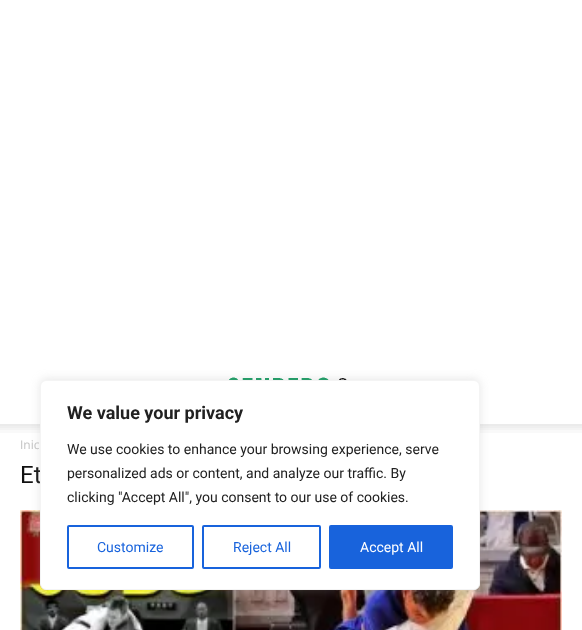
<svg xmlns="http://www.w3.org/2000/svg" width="582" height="630">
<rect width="100%" height="100%" fill="#fff"/>
<image x="229" y="377" width="118" height="3" href="media/1.png"/>
<image x="0" y="424" width="582" height="9" href="media/2.png"/>
<text x="20" y="449" style="font-family:Open Sans;font-size:12px;fill:#c3c3c3">Inic</text>
<text x="20" y="483" style="font-family:Roboto;font-size:24px;fill:#111">Et</text>
<image x="20" y="510" width="542" height="120" href="media/3.png"/>
<rect x="40" y="379" width="440" height="210" rx="6" fill="#acabab4d" filter="blur(5px)"/>
<rect x="40.5" y="380.5" width="439" height="209" rx="5.5" fill="#fff" stroke="#f4f4f4"/>
<text x="67" y="419" style="font-family:Roboto;font-size:18px;font-weight:bold;fill:#212121">We value your privacy</text>
<text x="67" y="454" style="font-family:Roboto;font-size:14px;fill:#212121">We use cookies to enhance your browsing experience, serve</text>
<text x="67" y="478" style="font-family:Roboto;font-size:14px;fill:#212121">personalized ads or content, and analyze our traffic. By</text>
<text x="67" y="502" style="font-family:Roboto;font-size:14px;fill:#212121">clicking "Accept All", you consent to our use of cookies.</text>
<rect x="68" y="526" width="125" height="42" rx="1" fill="none" stroke="#1863dc" stroke-width="2"/>
<text x="97" y="552" style="font-family:Roboto;font-size:14px;fill:#1863dc">Customize</text>
<rect x="203" y="526" width="117" height="42" rx="1" fill="none" stroke="#1863dc" stroke-width="2"/>
<text x="233" y="552" style="font-family:Roboto;font-size:14px;fill:#1863dc">Reject All</text>
<rect x="330" y="526" width="122" height="42" rx="1" fill="#1863dc" stroke="#1863dc" stroke-width="2"/>
<text x="360" y="552" style="font-family:Roboto;font-size:14px;fill:#fff">Accept All</text>
</svg>
